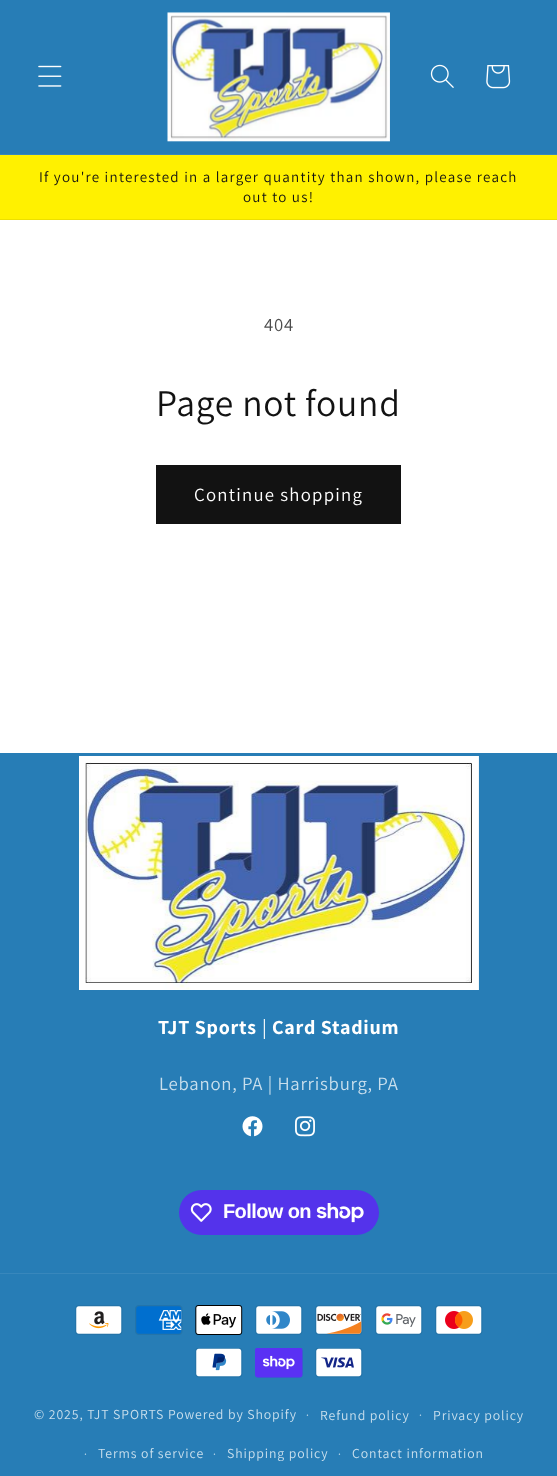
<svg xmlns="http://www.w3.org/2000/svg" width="557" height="1476">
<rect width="100%" height="100%" fill="#fff"/>
<rect width="557" height="154" fill="#277db6"/>
<rect y="154" width="557" height="1" fill="#3887bc"/>
<image x="38" y="65" width="24" height="22" href="media/1.png"/>
<image x="167" y="12" width="223" height="130" href="media/2.png"/>
<image x="430" y="64" width="24" height="24" href="media/3.png"/>
<image x="486" y="65" width="25" height="24" href="media/4.png"/>
<rect y="155" width="557" height="64" fill="#fff100"/>
<rect y="219" width="557" height="1" fill="#ecdf01"/>
<text x="39" y="182" style="font-family:Assistant;font-size:15px;letter-spacing:1.25px;fill:#121212">If you're interested in a larger quantity than shown, please reach</text>
<text x="243" y="202" style="font-family:Assistant;font-size:15px;letter-spacing:1.25px;fill:#121212">out to us!</text>
<text x="264" y="331" style="font-family:Assistant;font-size:18.75px;letter-spacing:0.75px;fill:#4d4d4d">404</text>
<text x="156" y="416" style="font-family:Assistant;font-size:37.5px;letter-spacing:0.75px;fill:#121212">Page not found</text>
<rect x="156" y="465" width="245" height="59" fill="#121212"/>
<text x="194" y="501" style="font-family:Assistant;font-size:18.75px;letter-spacing:1.25px;fill:#fff">Continue shopping</text>
<rect y="753" width="557" height="723" fill="#277db6"/>
<image x="79" y="756" width="400" height="234" href="media/5.png"/>
<text x="158" y="1034" style="font-family:Assistant;font-size:20px;font-weight:bold;letter-spacing:0.75px;fill:#fff">TJT Sports</text>
<text x="262" y="1034" style="font-family:Assistant;font-size:20px;letter-spacing:0.75px;fill:#fff">|</text>
<text x="272" y="1034" style="font-family:Assistant;font-size:20px;font-weight:bold;letter-spacing:0.75px;fill:#fff">Card Stadium</text>
<text x="159" y="1090" style="font-family:Assistant;font-size:18.75px;letter-spacing:0.75px;fill:#c9dfed">Lebanon, PA | Harrisburg, PA</text>
<image x="242" y="1116" width="21" height="21" href="media/6.png"/>
<image x="295" y="1116" width="20" height="21" href="media/7.png"/>
<rect x="179" y="1190" width="200" height="45" rx="22.5" fill="#5433eb"/>
<image x="190" y="1203" width="22" height="19" href="media/8.png"/>
<text x="223" y="1218" style="font-family:Liberation Sans;font-size:20px;font-weight:bold;letter-spacing:-0.6px;fill:#fff">Follow on</text>
<image x="316" y="1203" width="48" height="20" href="media/9.png"/>
<rect y="1273" width="557" height="1" fill="#3887bc"/>
<image x="75" y="1305" width="48" height="30" href="media/10.png"/>
<image x="135" y="1305" width="48" height="30" href="media/11.png"/>
<image x="195" y="1305" width="48" height="30" href="media/12.png"/>
<image x="255" y="1305" width="48" height="30" href="media/13.png"/>
<image x="315" y="1305" width="48" height="30" href="media/14.png"/>
<image x="375" y="1305" width="48" height="30" href="media/15.png"/>
<image x="435" y="1305" width="48" height="30" href="media/16.png"/>
<image x="195" y="1348" width="48" height="30" href="media/17.png"/>
<image x="255" y="1348" width="48" height="30" href="media/18.png"/>
<image x="315" y="1348" width="48" height="30" href="media/19.png"/>
<text x="34" y="1419" style="font-family:Assistant;font-size:13.75px;letter-spacing:0.9px;fill:#c9dfed">© 2025, TJT SPORTS Powered by Shopify</text>
<text x="306" y="1419" style="font-family:Assistant;font-size:12px;letter-spacing:0.9px;fill:#c9dfed">·</text>
<text x="320" y="1420" style="font-family:Assistant;font-size:13.75px;letter-spacing:0.9px;fill:#c9dfed">Refund policy</text>
<text x="419" y="1419" style="font-family:Assistant;font-size:12px;letter-spacing:0.9px;fill:#c9dfed">·</text>
<text x="433" y="1420" style="font-family:Assistant;font-size:13.75px;letter-spacing:0.9px;fill:#c9dfed">Privacy policy</text>
<text x="84" y="1458" style="font-family:Assistant;font-size:12px;letter-spacing:0.9px;fill:#c9dfed">·</text>
<text x="98" y="1458" style="font-family:Assistant;font-size:13.75px;letter-spacing:0.9px;fill:#c9dfed">Terms of service</text>
<text x="213" y="1458" style="font-family:Assistant;font-size:12px;letter-spacing:0.9px;fill:#c9dfed">·</text>
<text x="227" y="1458" style="font-family:Assistant;font-size:13.75px;letter-spacing:0.9px;fill:#c9dfed">Shipping policy</text>
<text x="338" y="1458" style="font-family:Assistant;font-size:12px;letter-spacing:0.9px;fill:#c9dfed">·</text>
<text x="352" y="1458" style="font-family:Assistant;font-size:13.75px;letter-spacing:0.9px;fill:#c9dfed">Contact information</text>
</svg>
